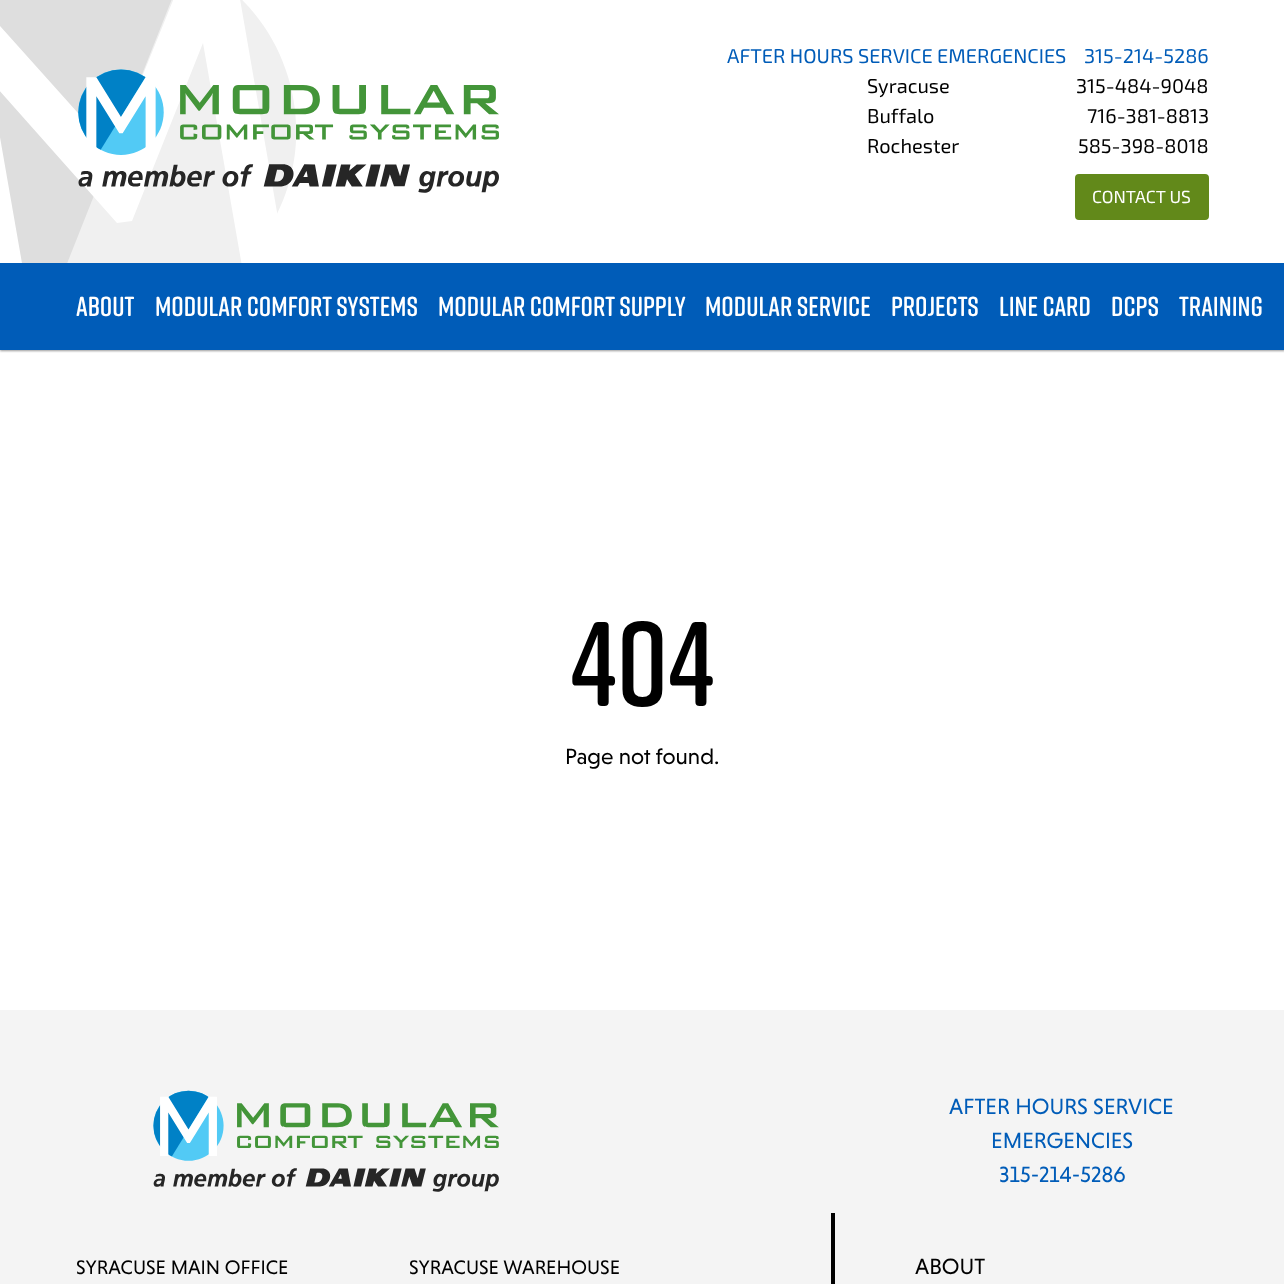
<svg xmlns="http://www.w3.org/2000/svg" width="1284" height="1284">
<defs>
<clipPath id="clip1"><rect x="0" y="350" width="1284" height="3"/></clipPath>
</defs>
<rect width="100%" height="100%" fill="#fff"/>
<g clip-path="url(#clip1)">
<rect y="1" width="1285" height="350" fill="#00000066" filter="blur(1px)"/>
</g>
<path d="M216-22c85 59 106 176 46 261c-60 85-176 105-261 46c-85-60-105-177-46-262c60-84 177-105 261-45" fill="#f0f0f0"/>
<path d="M-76 164c-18-102 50-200 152-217c39-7 78-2 111 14l-138 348c-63-21-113-75-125-145z" fill="#dedede"/>
<path d="M189-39l-77 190l-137-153l-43 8l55 311l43-8l-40-229l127 143l15-2l71-178l40 229l43-8l-54-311z" fill="#fff"/>
<image x="78" y="69" width="421" height="124" href="media/1.png"/>
<text x="727" y="63" style="font-family:'Exo 2';font-size:20px;fill:#005cb8">AFTER HOURS SERVICE EMERGENCIES</text>
<text x="1084" y="63" style="font-family:'Exo 2';font-size:20px;fill:#005cb8">315-214-5286</text>
<text x="867" y="93" style="font-family:'Exo 2';font-size:20px;fill:#000">Syracuse</text>
<text x="1076" y="93" style="font-family:'Exo 2';font-size:20px;fill:#000">315-484-9048</text>
<text x="867" y="123" style="font-family:'Exo 2';font-size:20px;fill:#000">Buffalo</text>
<text x="1087" y="123" style="font-family:'Exo 2';font-size:20px;fill:#000">716-381-8813</text>
<text x="867" y="153" style="font-family:'Exo 2';font-size:20px;fill:#000">Rochester</text>
<text x="1078" y="153" style="font-family:'Exo 2';font-size:20px;fill:#000">585-398-8018</text>
<rect x="1076.5" y="175.5" width="131" height="43" rx="2.5" fill="#62891a" stroke="#62891a" stroke-width="3"/>
<text x="1092" y="203" style="font-family:'Exo 2';font-size:17.5px;fill:#fff">CONTACT US</text>
<rect y="263" width="1284" height="87" fill="#005cb8"/>
<text x="76" y="316" style="font-family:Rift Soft;font-size:27.5px;font-weight:600;fill:#fff">ABOUT</text>
<text x="155" y="316" style="font-family:Rift Soft;font-size:27.5px;font-weight:600;fill:#fff">MODULAR COMFORT SYSTEMS</text>
<text x="438" y="316" style="font-family:Rift Soft;font-size:27.5px;font-weight:600;fill:#fff">MODULAR COMFORT SUPPLY</text>
<text x="705" y="316" style="font-family:Rift Soft;font-size:27.5px;font-weight:600;fill:#fff">MODULAR SERVICE</text>
<text x="891" y="316" style="font-family:Rift Soft;font-size:27.5px;font-weight:600;fill:#fff">PROJECTS</text>
<text x="999" y="316" style="font-family:Rift Soft;font-size:27.5px;font-weight:600;fill:#fff">LINE CARD</text>
<text x="1111" y="316" style="font-family:Rift Soft;font-size:27.5px;font-weight:600;fill:#fff">DCPS</text>
<text x="1179" y="316" style="font-family:Rift Soft;font-size:27.5px;font-weight:600;fill:#fff">TRAINING</text>
<text x="571" y="706" style="font-family:Rift Soft;font-size:120px;font-weight:600;fill:#000">404</text>
<text x="565" y="764" style="font-family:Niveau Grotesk;font-size:22.5px;fill:#000">Page not found.</text>
<rect y="1010" width="1284" height="274" fill="#f4f4f4"/>
<image x="153" y="1090" width="346" height="102" href="media/2.png"/>
<text x="949" y="1114" style="font-family:Niveau Grotesk;font-size:22.5px;fill:#005cb8">AFTER HOURS SERVICE</text>
<text x="991" y="1148" style="font-family:Niveau Grotesk;font-size:22.5px;fill:#005cb8">EMERGENCIES</text>
<text x="999" y="1182" style="font-family:Niveau Grotesk;font-size:22.5px;fill:#005cb8">315-214-5286</text>
<text x="76" y="1274" style="font-family:Niveau Grotesk;font-size:20px;fill:#000">SYRACUSE MAIN OFFICE</text>
<text x="409" y="1274" style="font-family:Niveau Grotesk;font-size:20px;fill:#000">SYRACUSE WAREHOUSE</text>
<rect x="831" y="1213" width="4" height="71" fill="#000"/>
<text x="915" y="1274" style="font-family:Niveau Grotesk;font-size:22.5px;fill:#000">ABOUT</text>
</svg>
